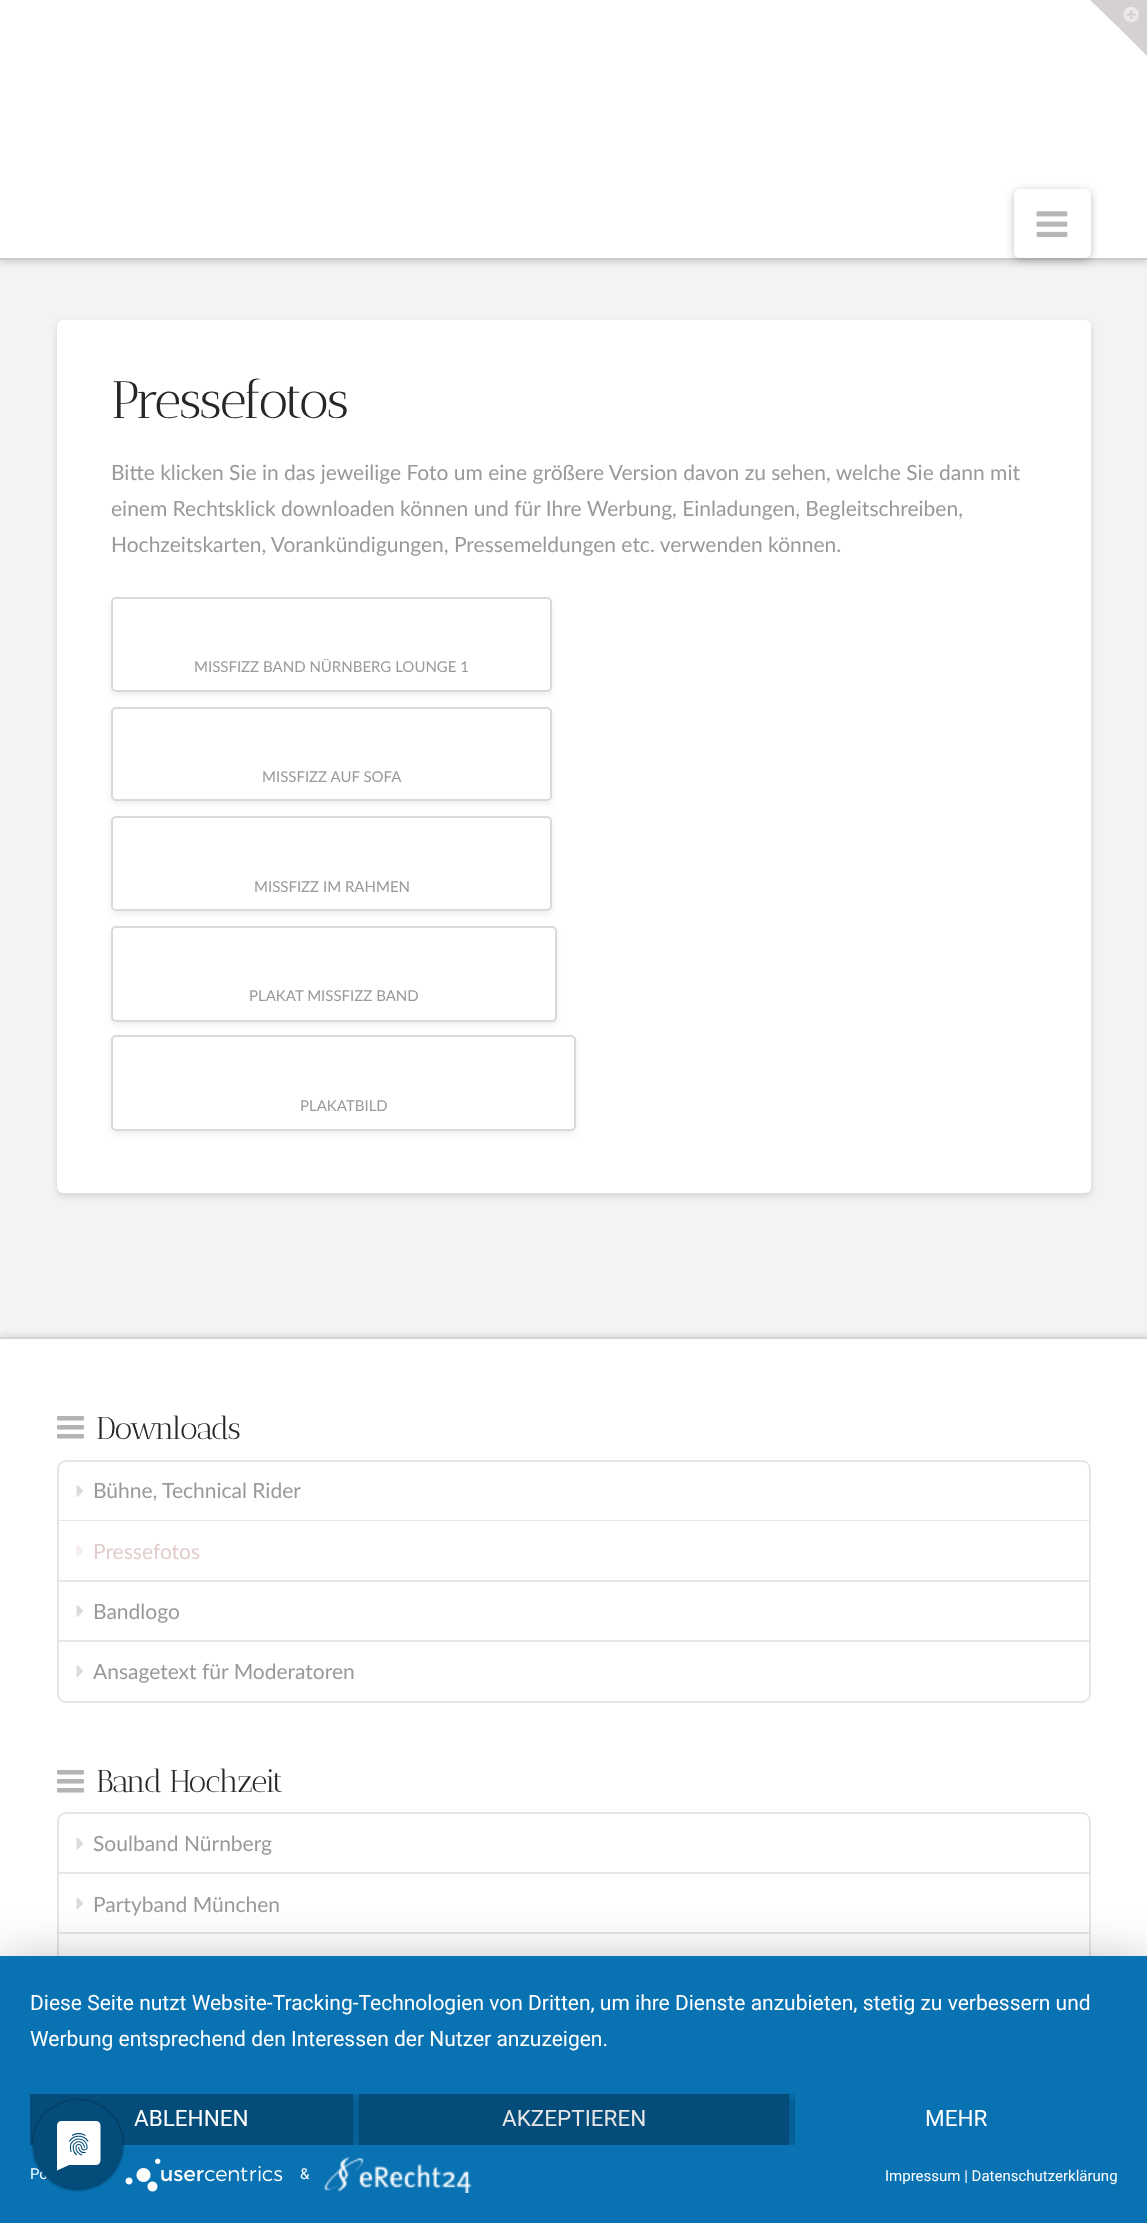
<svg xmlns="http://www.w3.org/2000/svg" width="1147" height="2223">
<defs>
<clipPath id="clip1"><rect x="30" y="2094" width="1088" height="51"/></clipPath>
</defs>
<rect width="100%" height="100%" fill="#f3f3f3"/>
<rect y="3" width="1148" height="260" fill="#00000021" filter="blur(3.5px)"/>
<rect width="1147" height="258" fill="#fff"/>
<path d="M1090 0h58l-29 28z" fill="#d6d1d1"/>
<path d="M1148 0v57l-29-29z" fill="#d6d1d1"/>
<image x="1123" y="7" width="16" height="16" href="media/1.png"/>
<rect y="258" width="1147" height="2" fill="#ccc"/>
<rect x="1014" y="191" width="77" height="69" rx="6" fill="#00000040" filter="blur(4px)"/>
<rect x="1014" y="189" width="77" height="69" rx="6" fill="#fff"/>
<image x="1036" y="211" width="32" height="26" href="media/2.png"/>
<rect x="57" y="323" width="1034" height="873" rx="6" fill="#00000021" filter="blur(3.5px)"/>
<rect x="57" y="320" width="1034" height="873" rx="6" fill="#fff"/>
<text x="111" y="418" style="font-family:Antic Didone;font-size:52.5px;letter-spacing:-1.75px;fill:#272727">Pressefotos</text>
<text x="111" y="480" style="font-family:Lato;font-size:21px;fill:#999">Bitte klicken Sie in das jeweilige Foto um eine größere Version davon zu sehen, welche Sie dann mit</text>
<text x="111" y="516" style="font-family:Lato;font-size:21px;fill:#999">einem Rechtsklick downloaden können und für Ihre Werbung, Einladungen, Begleitschreiben,</text>
<text x="111" y="552" style="font-family:Lato;font-size:21px;fill:#999">Hochzeitskarten, Vorankündigungen, Pressemeldungen etc. verwenden können.</text>
<rect x="111" y="600" width="441" height="95" rx="5" fill="#00000012" filter="blur(3px)"/>
<rect x="111" y="597" width="441" height="95" rx="5" fill="#fff"/>
<rect x="112" y="598" width="439" height="93" rx="4" fill="none" stroke="#00000026" stroke-width="2"/>
<text x="194" y="672" style="font-family:Lato;font-size:15px;fill:#999">MISSFIZZ BAND NÜRNBERG LOUNGE 1</text>
<rect x="111" y="710" width="441" height="94" rx="5" fill="#00000012" filter="blur(3px)"/>
<rect x="112" y="708" width="439" height="92" rx="4" fill="#fff" stroke="#d9d9d9" stroke-width="2"/>
<text x="262" y="782" style="font-family:Lato;font-size:15px;fill:#999">MISSFIZZ AUF SOFA</text>
<rect x="111" y="819" width="441" height="95" rx="5" fill="#00000012" filter="blur(3px)"/>
<rect x="111" y="816" width="441" height="95" rx="5" fill="#fff"/>
<rect x="112" y="817" width="439" height="93" rx="4" fill="none" stroke="#00000026" stroke-width="2"/>
<text x="254" y="892" style="font-family:Lato;font-size:15px;fill:#999">MISSFIZZ IM RAHMEN</text>
<rect x="111" y="929" width="446" height="96" rx="5" fill="#00000012" filter="blur(3px)"/>
<rect x="111" y="926" width="446" height="96" rx="5" fill="#fff"/>
<rect x="112" y="927" width="444" height="94" rx="4" fill="none" stroke="#00000026" stroke-width="2"/>
<text x="249" y="1001" style="font-family:Lato;font-size:15px;fill:#999">PLAKAT MISSFIZZ BAND</text>
<rect x="111" y="1038" width="465" height="96" rx="5" fill="#00000012" filter="blur(3px)"/>
<rect x="112" y="1036" width="463" height="94" rx="4" fill="#fff" stroke="#d9d9d9" stroke-width="2"/>
<text x="300" y="1111" style="font-family:Lato;font-size:15px;fill:#999">PLAKATBILD</text>
<rect y="1334" width="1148" height="793" fill="#00000012" filter="blur(2.5px)"/>
<rect y="1339" width="1147" height="617" fill="#fff"/>
<rect y="1337" width="1147" height="2" fill="#d4d4d4"/>
<image x="57" y="1416" width="27" height="23" href="media/3.png"/>
<text x="96" y="1439" style="font-family:Antic Didone;font-size:31.5px;letter-spacing:-1.1px;fill:#272727">Downloads</text>
<rect x="58" y="1461" width="1032" height="241" rx="8" fill="none" stroke="#e6e6e6" stroke-width="2"/>
<rect x="59" y="1520" width="1030" height="1" fill="#e6e6e6"/>
<image x="76" y="1485" width="7" height="12" href="media/4.png"/>
<text x="93" y="1498" style="font-family:Lato;font-size:21px;fill:#999">Bühne, Technical Rider</text>
<rect x="59" y="1580" width="1030" height="2" fill="#e6e6e6"/>
<image x="76" y="1545" width="7" height="12" href="media/5.png"/>
<text x="93" y="1559" style="font-family:Lato;font-size:21px;fill:#e1cecc">Pressefotos</text>
<rect x="59" y="1640" width="1030" height="2" fill="#e6e6e6"/>
<image x="76" y="1605" width="7" height="12" href="media/4.png"/>
<text x="93" y="1619" style="font-family:Lato;font-size:21px;fill:#999">Bandlogo</text>
<image x="76" y="1665" width="7" height="12" href="media/4.png"/>
<text x="93" y="1679" style="font-family:Lato;font-size:21px;fill:#999">Ansagetext für Moderatoren</text>
<image x="57" y="1770" width="27" height="23" href="media/3.png"/>
<text x="96" y="1792" style="font-family:Antic Didone;font-size:31.5px;letter-spacing:-1.1px;fill:#272727">Band Hochzeit</text>
<rect x="58" y="1813" width="1032" height="241" rx="8" fill="none" stroke="#e6e6e6" stroke-width="2"/>
<rect x="59" y="1872" width="1030" height="2" fill="#e6e6e6"/>
<image x="76" y="1837" width="8" height="13" href="media/6.png"/>
<text x="93" y="1851" style="font-family:Lato;font-size:21px;fill:#999">Soulband Nürnberg</text>
<rect x="59" y="1932" width="1030" height="2" fill="#e6e6e6"/>
<image x="76" y="1897" width="8" height="13" href="media/6.png"/>
<text x="93" y="1912" style="font-family:Lato;font-size:21px;fill:#999">Partyband München</text>
<rect y="1965" width="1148" height="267" fill="#0000004d" filter="blur(27px)"/>
<rect y="1956" width="1147" height="267" fill="#0972b3"/>
<text x="30" y="2010" style="font-family:Roboto;font-size:21px;fill:#fff">Diese Seite nutzt Website-Tracking-Technologien von Dritten, um ihre Dienste anzubieten, stetig zu verbessern und</text>
<text x="30" y="2046" style="font-family:Roboto;font-size:21px;fill:#fff">Werbung entsprechend den Interessen der Nutzer anzuzeigen.</text>
<g clip-path="url(#clip1)">
<rect x="30" y="2096" width="323" height="51" fill="#00000066" filter="blur(3px)"/>
</g>
<rect x="30" y="2094" width="323" height="51" fill="#044d7a"/>
<text x="134" y="2126" style="font-family:Roboto;font-size:22.5px;fill:#fff">ABLEHNEN</text>
<g clip-path="url(#clip1)">
<rect x="359" y="2096" width="430" height="51" fill="#00000066" filter="blur(3px)"/>
</g>
<rect x="359" y="2094" width="430" height="51" fill="#044d7a"/>
<text x="502" y="2126" style="font-family:Roboto;font-size:22.5px;fill:#e6e6e6">AKZEPTIEREN</text>
<g clip-path="url(#clip1)">
<rect x="795" y="2096" width="323" height="51" fill="#00000066" filter="blur(3px)"/>
</g>
<rect x="795" y="2094" width="323" height="51" fill="#0972b3"/>
<text x="925" y="2126" style="font-family:Roboto;font-size:22.5px;fill:#fff">MEHR</text>
<text x="30" y="2179" style="font-family:Roboto;font-size:15px;fill:#fff">Po</text>
<image x="125" y="2158" width="158" height="34" href="media/7.png"/>
<text x="300" y="2179" style="font-family:Roboto;font-size:15px;fill:#fff">&amp;</text>
<image x="324" y="2157" width="148" height="36" href="media/8.png"/>
<text x="885" y="2181" style="font-family:Roboto;font-size:15px;fill:#fff">Impressum | Datenschutzerklärung</text>
<image x="31" y="2098" width="94" height="94" href="media/9.png"/>
</svg>
